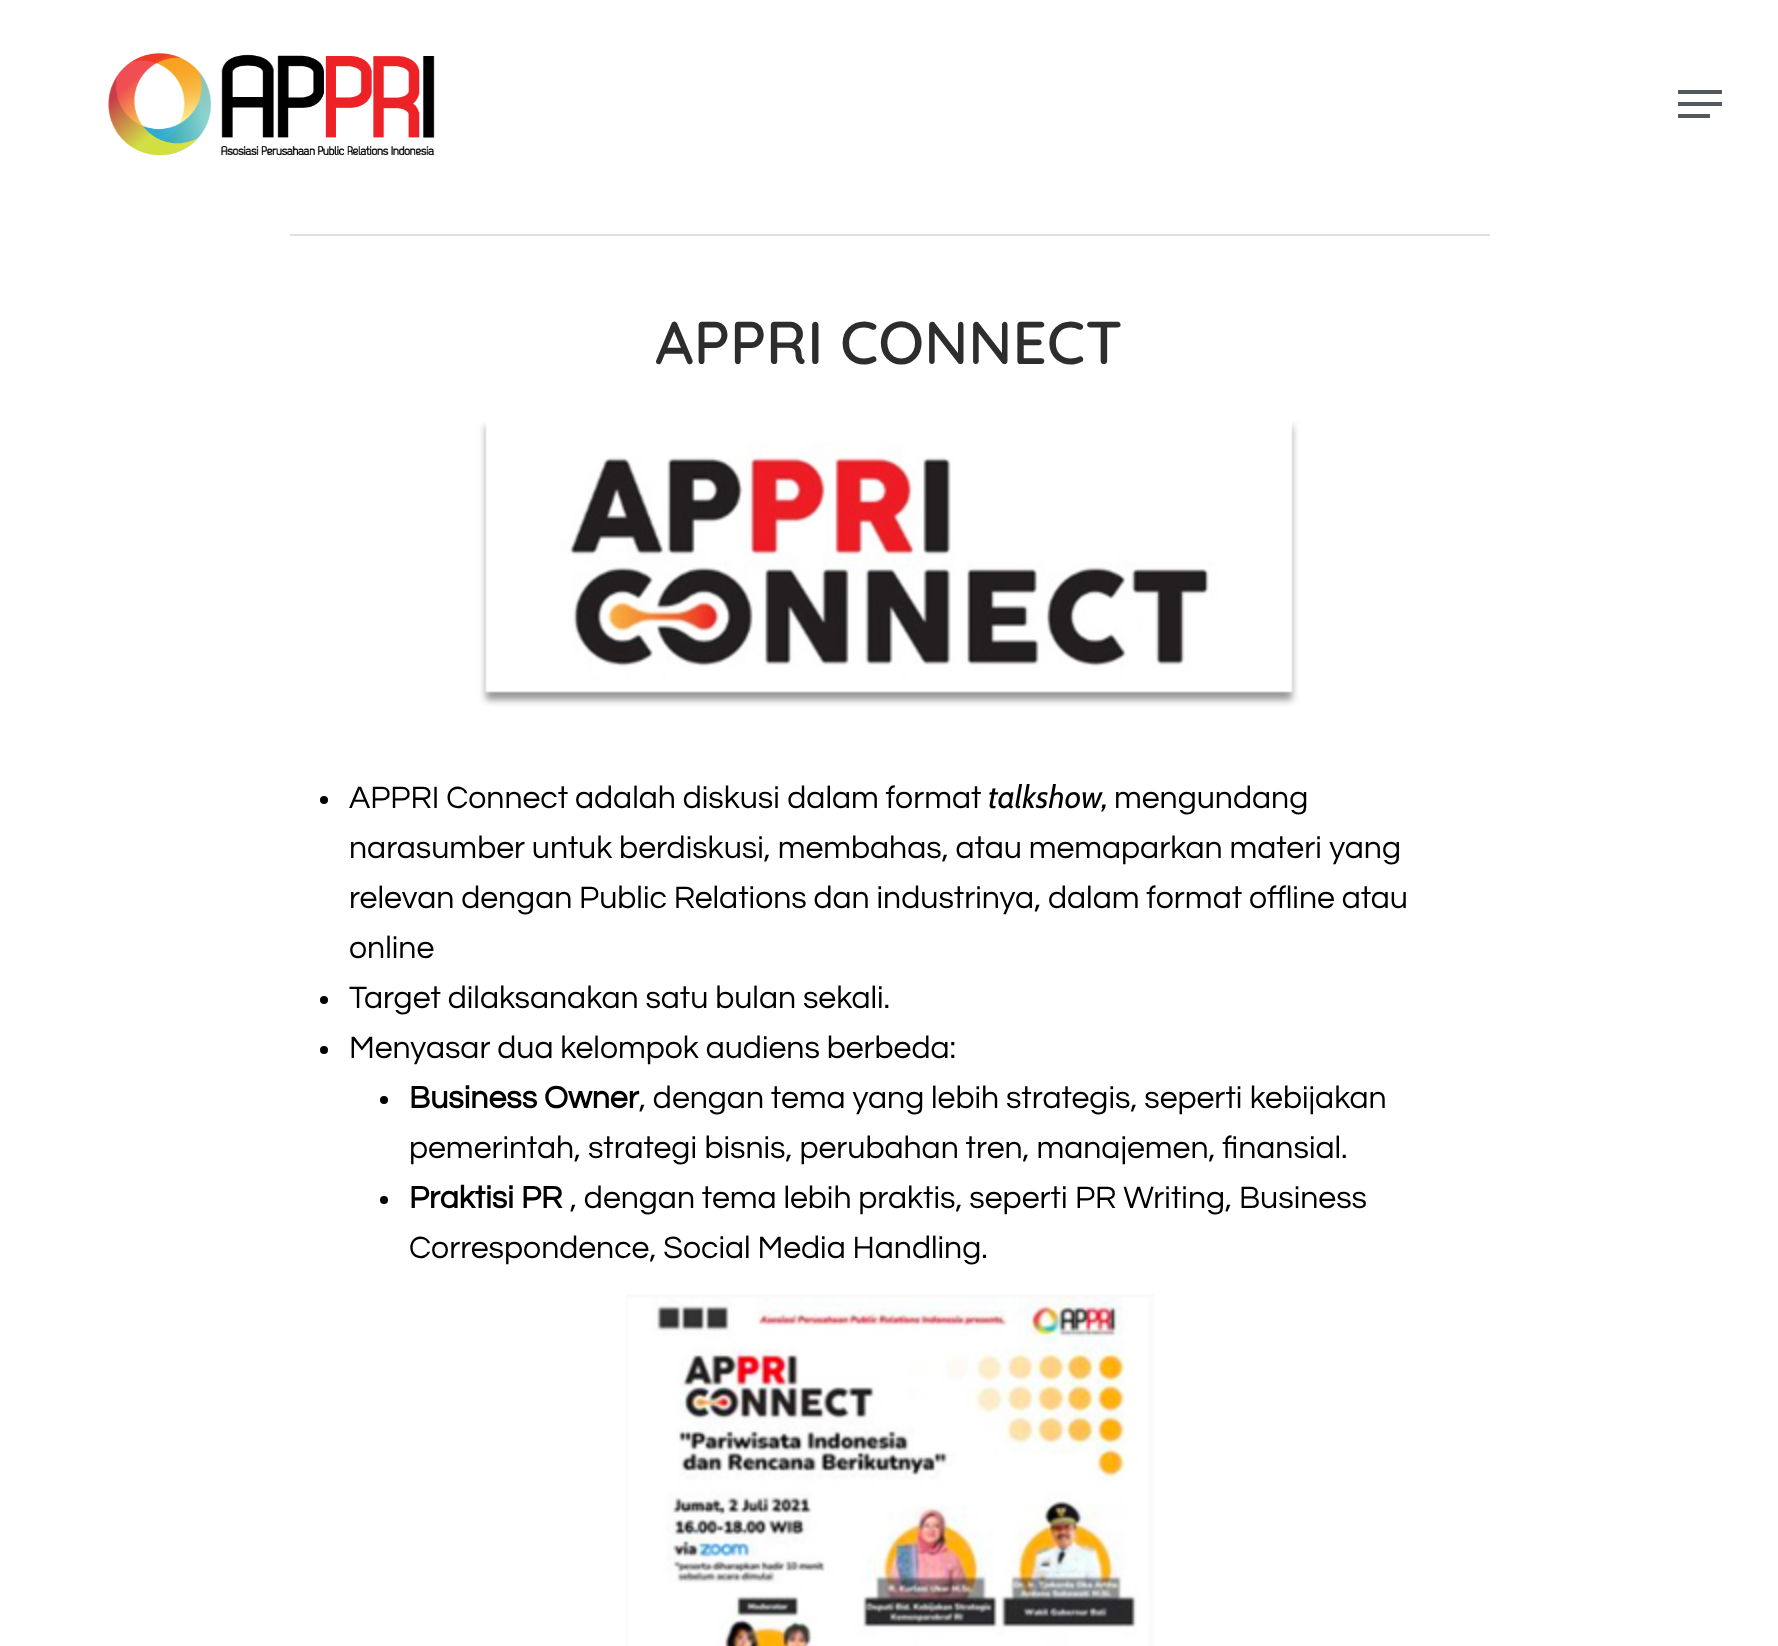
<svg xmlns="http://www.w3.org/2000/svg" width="1778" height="1646">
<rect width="100%" height="100%" fill="#fff"/>
<image x="108" y="53" width="327" height="102" href="media/1.png"/>
<rect x="1678" y="90" width="44" height="4" fill="#54595f"/>
<rect x="1678" y="114" width="32" height="4" fill="#54595f"/>
<rect x="1678" y="102" width="44" height="4" fill="#54595f"/>
<rect x="290" y="234" width="1200" height="2" fill="#e0e0e0"/>
<text x="655" y="364" style="font-family:Quicksand;font-size:60.25px;font-weight:600;fill:#2d2d2d">APPRI CONNECT</text>
<image x="479" y="421" width="820" height="285" href="media/2.png"/>
<circle cx="324" cy="800" r="4" fill="#000"/>
<text x="349" y="808" style="font-family:Questrial;font-size:32px;fill:#000">APPRI Connect adalah diskusi dalam format</text>
<text x="988" y="808" style="font-family:Cabin;font-size:32px;font-style:italic;fill:#000">talkshow</text>
<text x="1114" y="808" style="font-family:Questrial;font-size:32px;fill:#000">mengundang</text>
<text x="1102" y="808" style="font-family:Cabin;font-size:32px;font-style:italic;fill:#000">,</text>
<text x="349" y="858" style="font-family:Questrial;font-size:32px;fill:#000">narasumber untuk berdiskusi, membahas, atau memaparkan materi yang</text>
<text x="349" y="908" style="font-family:Questrial;font-size:32px;fill:#000">relevan dengan Public Relations dan industrinya, dalam format offline atau</text>
<text x="349" y="958" style="font-family:Questrial;font-size:32px;fill:#000">online</text>
<circle cx="324" cy="1000" r="4" fill="#000"/>
<text x="349" y="1008" style="font-family:Questrial;font-size:32px;fill:#000">Target dilaksanakan satu bulan sekali.</text>
<circle cx="324" cy="1050" r="4" fill="#000"/>
<text x="349" y="1058" style="font-family:Questrial;font-size:32px;fill:#000">Menyasar dua kelompok audiens berbeda:</text>
<circle cx="384" cy="1100" r="4" fill="#000"/>
<text x="409" y="1108" style="font-family:Questrial;font-size:32px;font-weight:bold;fill:#000">Business Owner</text>
<text x="639" y="1108" style="font-family:Questrial;font-size:32px;fill:#000">, dengan tema yang lebih strategis, seperti kebijakan</text>
<text x="409" y="1158" style="font-family:Questrial;font-size:32px;fill:#000">pemerintah, strategi bisnis, perubahan tren, manajemen, finansial.</text>
<circle cx="384" cy="1200" r="4" fill="#000"/>
<text x="409" y="1208" style="font-family:Questrial;font-size:32px;font-weight:bold;fill:#000">Praktisi</text>
<text x="521" y="1208" style="font-family:Questrial;font-size:32px;font-weight:bold;fill:#000">PR</text>
<text x="570" y="1208" style="font-family:Questrial;font-size:32px;fill:#000">, dengan tema lebih praktis, seperti PR Writing, Business</text>
<text x="409" y="1258" style="font-family:Questrial;font-size:32px;fill:#000">Correspondence, Social Media Handling.</text>
<image x="626" y="1294" width="528" height="352" href="media/3.png"/>
</svg>
